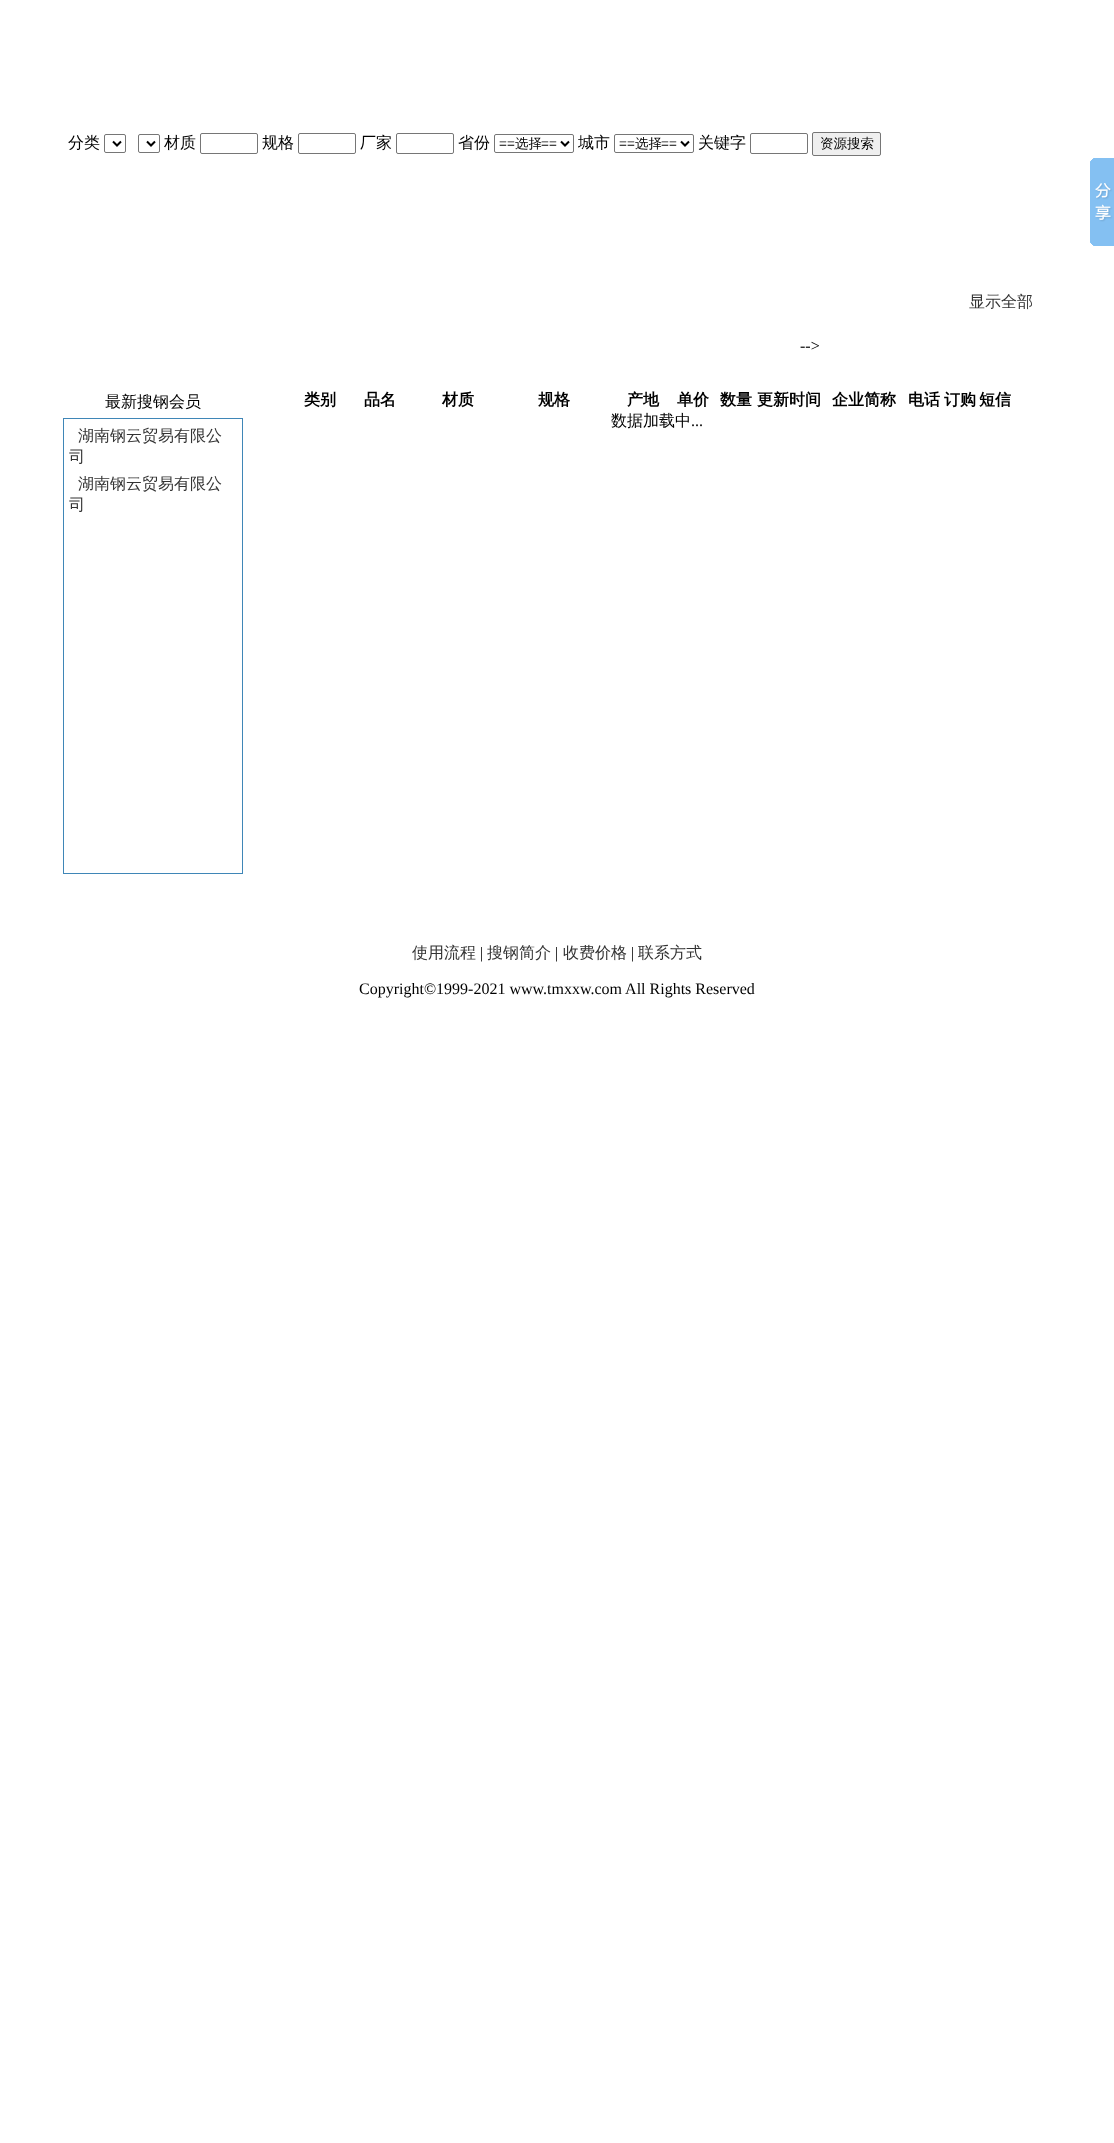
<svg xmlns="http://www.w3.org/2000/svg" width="1114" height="2143">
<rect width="100%" height="100%" fill="#fff"/>
<text x="68" y="148" style="font-family:WenQuanYi Zen Hei;font-size:16px;font-weight:500;fill:#000">分类</text>
<rect x="104.5" y="134.5" width="21" height="18" rx="1.5" fill="none" stroke="#767676"/>
<path d="M113 141.5l4 4l4-4" fill="none" stroke="#000" stroke-width="2"/>
<rect x="138.5" y="134.5" width="21" height="18" rx="1.5" fill="none" stroke="#767676"/>
<path d="M147 141.5l4 4l4-4" fill="none" stroke="#000" stroke-width="2"/>
<text x="164" y="148" style="font-family:WenQuanYi Zen Hei;font-size:16px;font-weight:500;fill:#000">材质</text>
<rect x="200.5" y="133.5" width="57" height="20" rx="1.5" fill="none" stroke="#767676"/>
<text x="262" y="148" style="font-family:WenQuanYi Zen Hei;font-size:16px;font-weight:500;fill:#000">规格</text>
<rect x="298.5" y="133.5" width="57" height="20" rx="1.5" fill="none" stroke="#767676"/>
<text x="360" y="148" style="font-family:WenQuanYi Zen Hei;font-size:16px;font-weight:500;fill:#000">厂家</text>
<rect x="396.5" y="133.5" width="57" height="20" rx="1.5" fill="none" stroke="#767676"/>
<text x="458" y="148" style="font-family:WenQuanYi Zen Hei;font-size:16px;font-weight:500;fill:#000">省份</text>
<rect x="494.5" y="134.5" width="79" height="18" rx="1.5" fill="none" stroke="#767676"/>
<path d="M561 141.5l4 4l4-4" fill="none" stroke="#000" stroke-width="2"/>
<text x="499" y="148" style="font-family:Liberation Sans;font-size:13.5px;fill:#000">==</text>
<text x="515" y="148" style="font-family:WenQuanYi Zen Hei;font-size:13.5px;font-weight:500;fill:#000">选择</text>
<text x="541" y="148" style="font-family:Liberation Sans;font-size:13.5px;fill:#000">==</text>
<text x="578" y="148" style="font-family:WenQuanYi Zen Hei;font-size:16px;font-weight:500;fill:#000">城市</text>
<rect x="614.5" y="134.5" width="79" height="18" rx="1.5" fill="none" stroke="#767676"/>
<path d="M681 141.5l4 4l4-4" fill="none" stroke="#000" stroke-width="2"/>
<text x="619" y="148" style="font-family:Liberation Sans;font-size:13.5px;fill:#000">==</text>
<text x="635" y="148" style="font-family:WenQuanYi Zen Hei;font-size:13.5px;font-weight:500;fill:#000">选择</text>
<text x="661" y="148" style="font-family:Liberation Sans;font-size:13.5px;fill:#000">==</text>
<text x="698" y="148" style="font-family:WenQuanYi Zen Hei;font-size:16px;font-weight:500;fill:#000">关键字</text>
<rect x="750.5" y="133.5" width="57" height="20" rx="1.5" fill="none" stroke="#767676"/>
<rect x="812.5" y="132.5" width="68" height="23" rx="1.5" fill="#efefef" stroke="#767676"/>
<text x="820" y="148" style="font-family:WenQuanYi Zen Hei;font-size:13.5px;font-weight:500;fill:#000">资源搜索</text>
<text x="969" y="307" style="font-family:WenQuanYi Zen Hei;font-size:16px;font-weight:500;fill:#333">显示全部</text>
<text x="800" y="351" style="font-family:Liberation Serif;font-size:16px;fill:#000">--&gt;</text>
<text x="105" y="407" style="font-family:WenQuanYi Zen Hei;font-size:16px;font-weight:500;fill:#000">最新搜钢会员</text>
<rect x="63" y="418" width="180" height="456" fill="#3f86b7"/>
<rect x="64" y="419" width="178" height="454" fill="#fff"/>
<text x="78" y="441" style="font-family:WenQuanYi Zen Hei;font-size:16px;font-weight:500;fill:#333">湖南钢云贸易有限公</text>
<text x="69" y="462" style="font-family:WenQuanYi Zen Hei;font-size:16px;font-weight:500;fill:#333">司</text>
<text x="78" y="489" style="font-family:WenQuanYi Zen Hei;font-size:16px;font-weight:500;fill:#333">湖南钢云贸易有限公</text>
<text x="69" y="510" style="font-family:WenQuanYi Zen Hei;font-size:16px;font-weight:500;fill:#333">司</text>
<text x="304" y="405" style="font-family:WenQuanYi Zen Hei;font-size:16px;font-weight:bold;fill:#000">类别</text>
<text x="364" y="405" style="font-family:WenQuanYi Zen Hei;font-size:16px;font-weight:bold;fill:#000">品名</text>
<text x="442" y="405" style="font-family:WenQuanYi Zen Hei;font-size:16px;font-weight:bold;fill:#000">材质</text>
<text x="538" y="405" style="font-family:WenQuanYi Zen Hei;font-size:16px;font-weight:bold;fill:#000">规格</text>
<text x="627" y="405" style="font-family:WenQuanYi Zen Hei;font-size:16px;font-weight:bold;fill:#000">产地</text>
<text x="677" y="405" style="font-family:WenQuanYi Zen Hei;font-size:16px;font-weight:bold;fill:#000">单价</text>
<text x="720" y="405" style="font-family:WenQuanYi Zen Hei;font-size:16px;font-weight:bold;fill:#000">数量</text>
<text x="757" y="405" style="font-family:WenQuanYi Zen Hei;font-size:16px;font-weight:bold;fill:#000">更新时间</text>
<text x="832" y="405" style="font-family:WenQuanYi Zen Hei;font-size:16px;font-weight:bold;fill:#000">企业简称</text>
<text x="908" y="405" style="font-family:WenQuanYi Zen Hei;font-size:16px;font-weight:bold;fill:#000">电话</text>
<text x="944" y="405" style="font-family:WenQuanYi Zen Hei;font-size:16px;font-weight:bold;fill:#000">订购</text>
<text x="979" y="405" style="font-family:WenQuanYi Zen Hei;font-size:16px;font-weight:bold;fill:#000">短信</text>
<text x="611" y="426" style="font-family:WenQuanYi Zen Hei;font-size:16px;font-weight:500;fill:#000">数据加载中</text>
<text x="691" y="426" style="font-family:Liberation Serif;font-size:16px;fill:#000">...</text>
<text x="412" y="958" style="font-family:WenQuanYi Zen Hei;font-size:16px;font-weight:500;fill:#333">使用流程</text>
<text x="480" y="958" style="font-family:Liberation Serif;font-size:16px;fill:#000">|</text>
<text x="487" y="958" style="font-family:WenQuanYi Zen Hei;font-size:16px;font-weight:500;fill:#333">搜钢简介</text>
<text x="555" y="958" style="font-family:Liberation Serif;font-size:16px;fill:#000">|</text>
<text x="563" y="958" style="font-family:WenQuanYi Zen Hei;font-size:16px;font-weight:500;fill:#333">收费价格</text>
<text x="631" y="958" style="font-family:Liberation Serif;font-size:16px;fill:#000">|</text>
<text x="638" y="958" style="font-family:WenQuanYi Zen Hei;font-size:16px;font-weight:500;fill:#333">联系方式</text>
<text x="359" y="994" style="font-family:Liberation Serif;font-size:16px;fill:#000">Copyright©1999-2021 www.tmxxw.com All Rights Reserved</text>
<image x="1090" y="158" width="24" height="88" href="media/1.png"/>
</svg>
